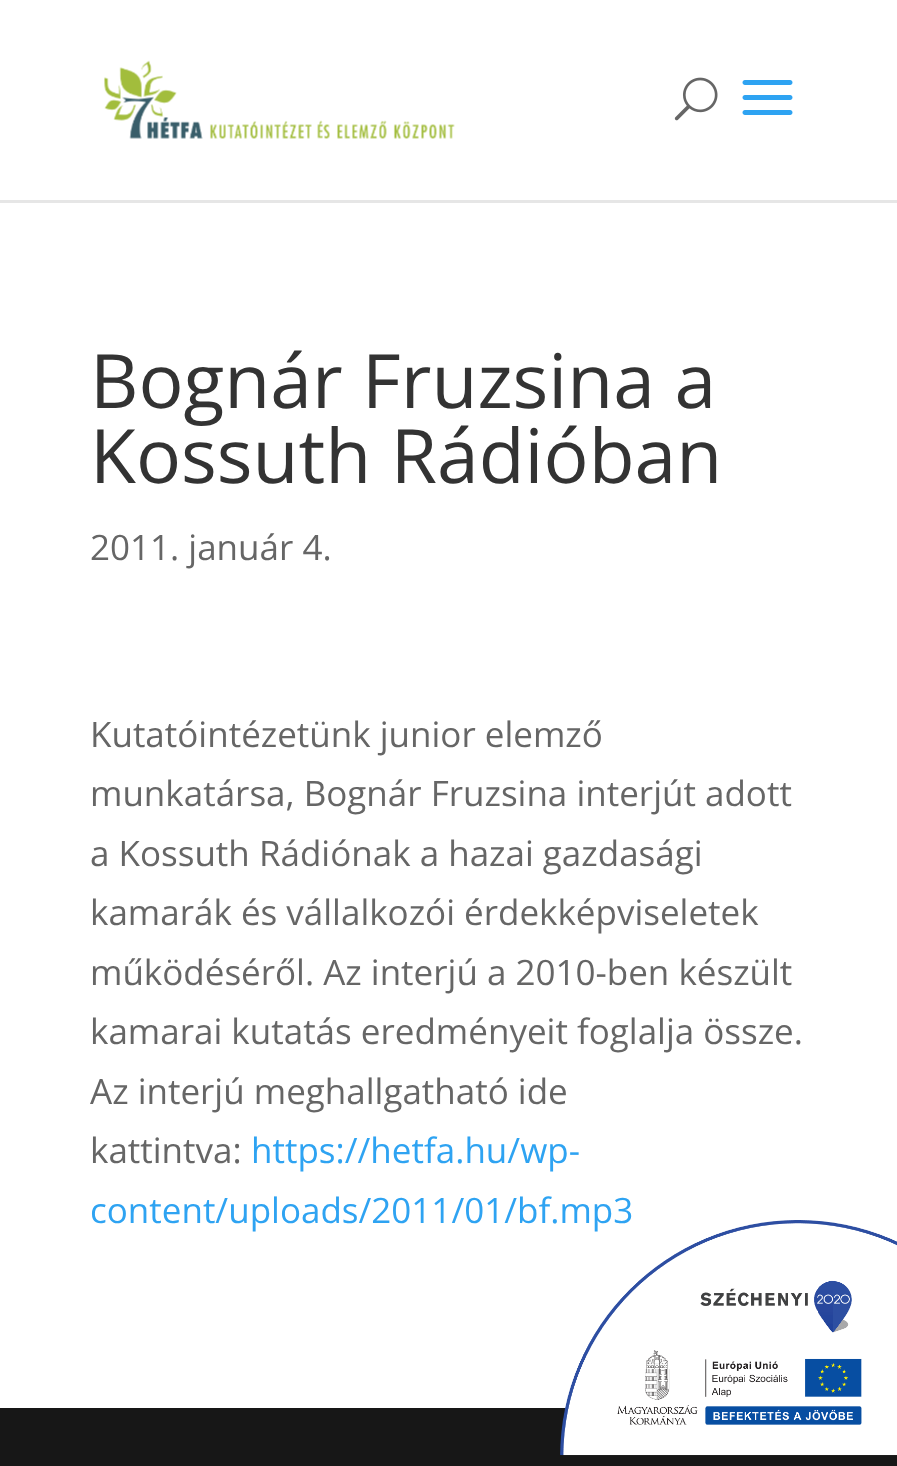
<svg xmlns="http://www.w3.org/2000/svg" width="897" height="1466">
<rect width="100%" height="100%" fill="#fff"/>
<path d="M0 200v3h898v-200v197z" fill="#e6e6e6"/>
<image x="104" y="60" width="351" height="79" href="media/1.png"/>
<image x="674" y="77" width="44" height="44" href="media/2.png"/>
<image x="742" y="80" width="51" height="35" href="media/3.png"/>
<text x="90" y="408" style="font-family:Open Sans;font-size:75px;fill:#333">Bognár Fruzsina a</text>
<text x="90" y="483" style="font-family:Open Sans;font-size:75px;fill:#333">Kossuth Rádióban</text>
<text x="90" y="560" style="font-family:Open Sans;font-size:35px;fill:#666">2011. január 4.</text>
<text x="90" y="747" style="font-family:Open Sans;font-size:35px;fill:#666">Kutatóintézetünk junior elemző</text>
<text x="90" y="806" style="font-family:Open Sans;font-size:35px;fill:#666">munkatársa, Bognár Fruzsina interjút adott</text>
<text x="90" y="866" style="font-family:Open Sans;font-size:35px;fill:#666">a Kossuth Rádiónak a hazai gazdasági</text>
<text x="90" y="925" style="font-family:Open Sans;font-size:35px;fill:#666">kamarák és vállalkozói érdekképviseletek</text>
<text x="90" y="985" style="font-family:Open Sans;font-size:35px;fill:#666">működéséről. Az interjú a 2010-ben készült</text>
<text x="90" y="1044" style="font-family:Open Sans;font-size:35px;fill:#666">kamarai kutatás eredményeit foglalja össze.</text>
<text x="90" y="1104" style="font-family:Open Sans;font-size:35px;fill:#666">Az interjú meghallgatható ide</text>
<text x="90" y="1163" style="font-family:Open Sans;font-size:35px;fill:#666">kattintva:</text>
<text x="251" y="1163" style="font-family:Open Sans;font-size:35px;fill:#2ea3f2">https://hetfa.hu/wp-</text>
<text x="90" y="1223" style="font-family:Open Sans;font-size:35px;fill:#2ea3f2">content/uploads/2011/01/bf.mp3</text>
<rect y="1408" width="897" height="58" fill="#171717"/>
<image x="560" y="1220" width="337" height="236" href="media/4.png"/>
</svg>
